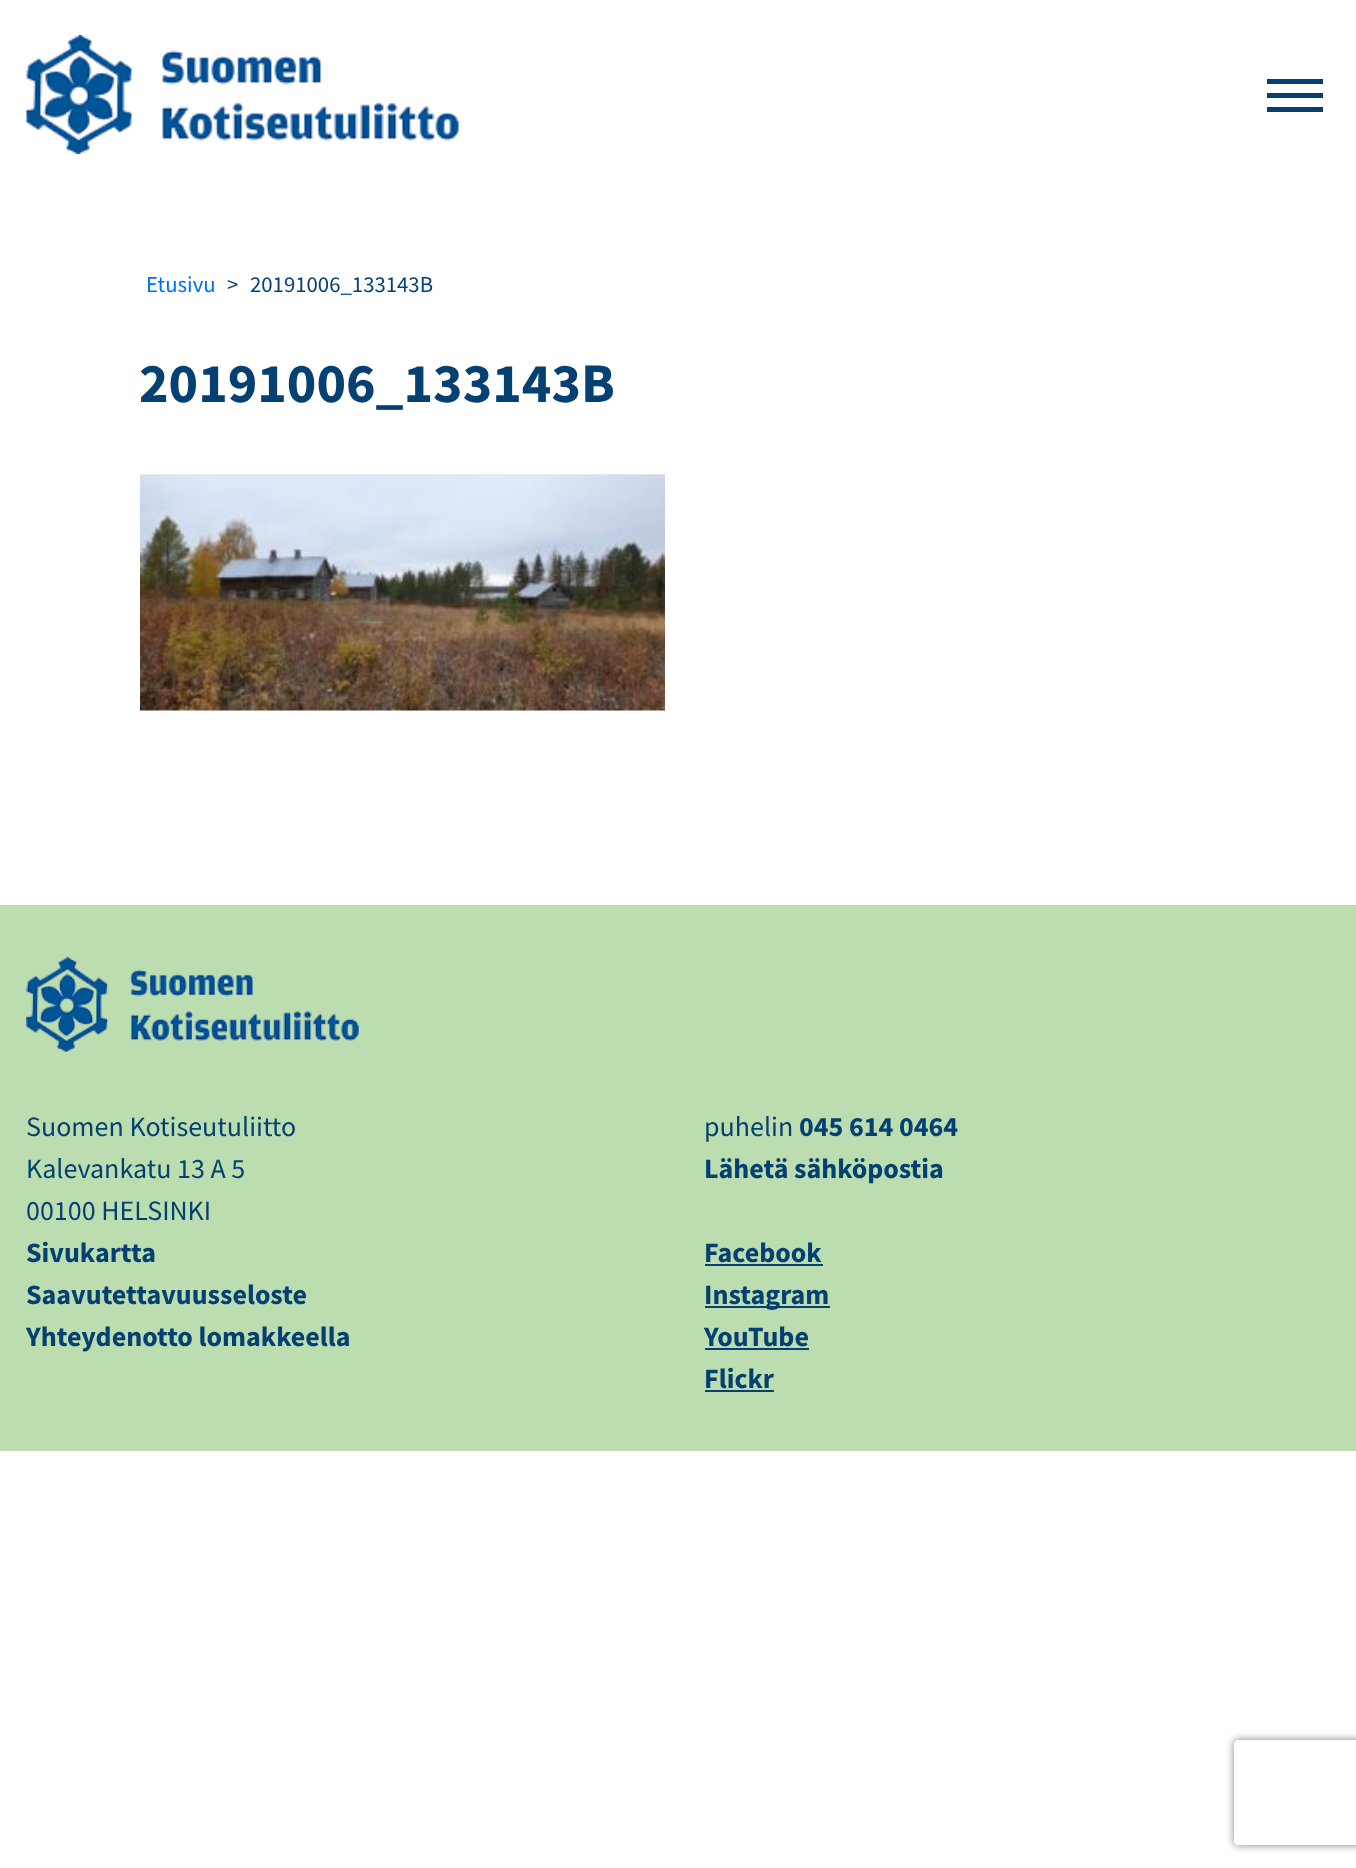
<svg xmlns="http://www.w3.org/2000/svg" width="1356" height="1868">
<defs>
<clipPath id="clip1"><path d="M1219 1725h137v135h-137zm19 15h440c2 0 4 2 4 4v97c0 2-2 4-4 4h-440c-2 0-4-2-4-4v-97c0-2 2-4 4-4z" clip-rule="evenodd"/></clipPath>
</defs>
<rect width="100%" height="100%" fill="#fff"/>
<image x="26" y="35" width="433" height="119" href="media/1.png"/>
<rect x="1267" y="79" width="56" height="5" fill="#044071"/>
<rect x="1267" y="93" width="56" height="5" fill="#044071"/>
<rect x="1267" y="107" width="56" height="5" fill="#044071"/>
<text x="146" y="292" style="font-family:Source Sans Pro;font-size:22.75px;fill:#006ff6">Etusivu</text>
<text x="227" y="292" style="font-family:Source Sans Pro;font-size:22.75px;fill:#044071">&gt;</text>
<text x="250" y="292" style="font-family:Source Sans Pro;font-size:22.75px;fill:#044071">20191006_133143B</text>
<text x="139" y="402" style="font-family:Source Sans Pro;font-size:56px;font-weight:bold;fill:#044071">20191006_133143B</text>
<image x="140" y="474" width="525" height="237" href="media/2.png"/>
<rect y="905" width="1356" height="546" fill="#bbddb0"/>
<image x="26" y="957" width="333" height="95" href="media/3.png"/>
<text x="26" y="1136" style="font-family:Source Sans Pro;font-size:28px;fill:#044071">Suomen Kotiseutuliitto</text>
<text x="26" y="1178" style="font-family:Source Sans Pro;font-size:28px;fill:#044071">Kalevankatu 13 A 5</text>
<text x="26" y="1220" style="font-family:Source Sans Pro;font-size:28px;fill:#044071">00100 HELSINKI</text>
<text x="704" y="1136" style="font-family:Source Sans Pro;font-size:28px;fill:#044071">puhelin</text>
<text x="799" y="1136" style="font-family:Source Sans Pro;font-size:28px;font-weight:bold;fill:#044071">045 614 0464</text>
<text x="704" y="1178" style="font-family:Source Sans Pro;font-size:28px;font-weight:bold;fill:#044071">Lähetä sähköpostia</text>
<text x="26" y="1262" style="font-family:Source Sans Pro;font-size:28px;font-weight:bold;fill:#044071">Sivukartta</text>
<text x="26" y="1304" style="font-family:Source Sans Pro;font-size:28px;font-weight:bold;fill:#044071">Saavutettavuusseloste</text>
<text x="26" y="1346" style="font-family:Source Sans Pro;font-size:28px;font-weight:bold;fill:#044071">Yhteydenotto lomakkeella</text>
<text x="704" y="1262" style="font-family:Source Sans Pro;font-size:28px;font-weight:bold;fill:#044071">Facebook</text>
<rect x="705" y="1264" width="118" height="2" fill="#044071"/>
<rect x="705" y="1306" width="125" height="2" fill="#044071"/>
<text x="704" y="1304" style="font-family:Source Sans Pro;font-size:28px;font-weight:bold;fill:#044071">Instagram</text>
<text x="704" y="1346" style="font-family:Source Sans Pro;font-size:28px;font-weight:bold;fill:#044071">YouTube</text>
<rect x="705" y="1348" width="104" height="2" fill="#044071"/>
<text x="704" y="1388" style="font-family:Source Sans Pro;font-size:28px;font-weight:bold;fill:#044071">Flickr</text>
<rect x="705" y="1390" width="69" height="2" fill="#044071"/>
<g clip-path="url(#clip1)">
<rect x="1234" y="1740" width="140" height="105" rx="4" fill="#808080" filter="blur(4.5px)"/>
</g>
</svg>
